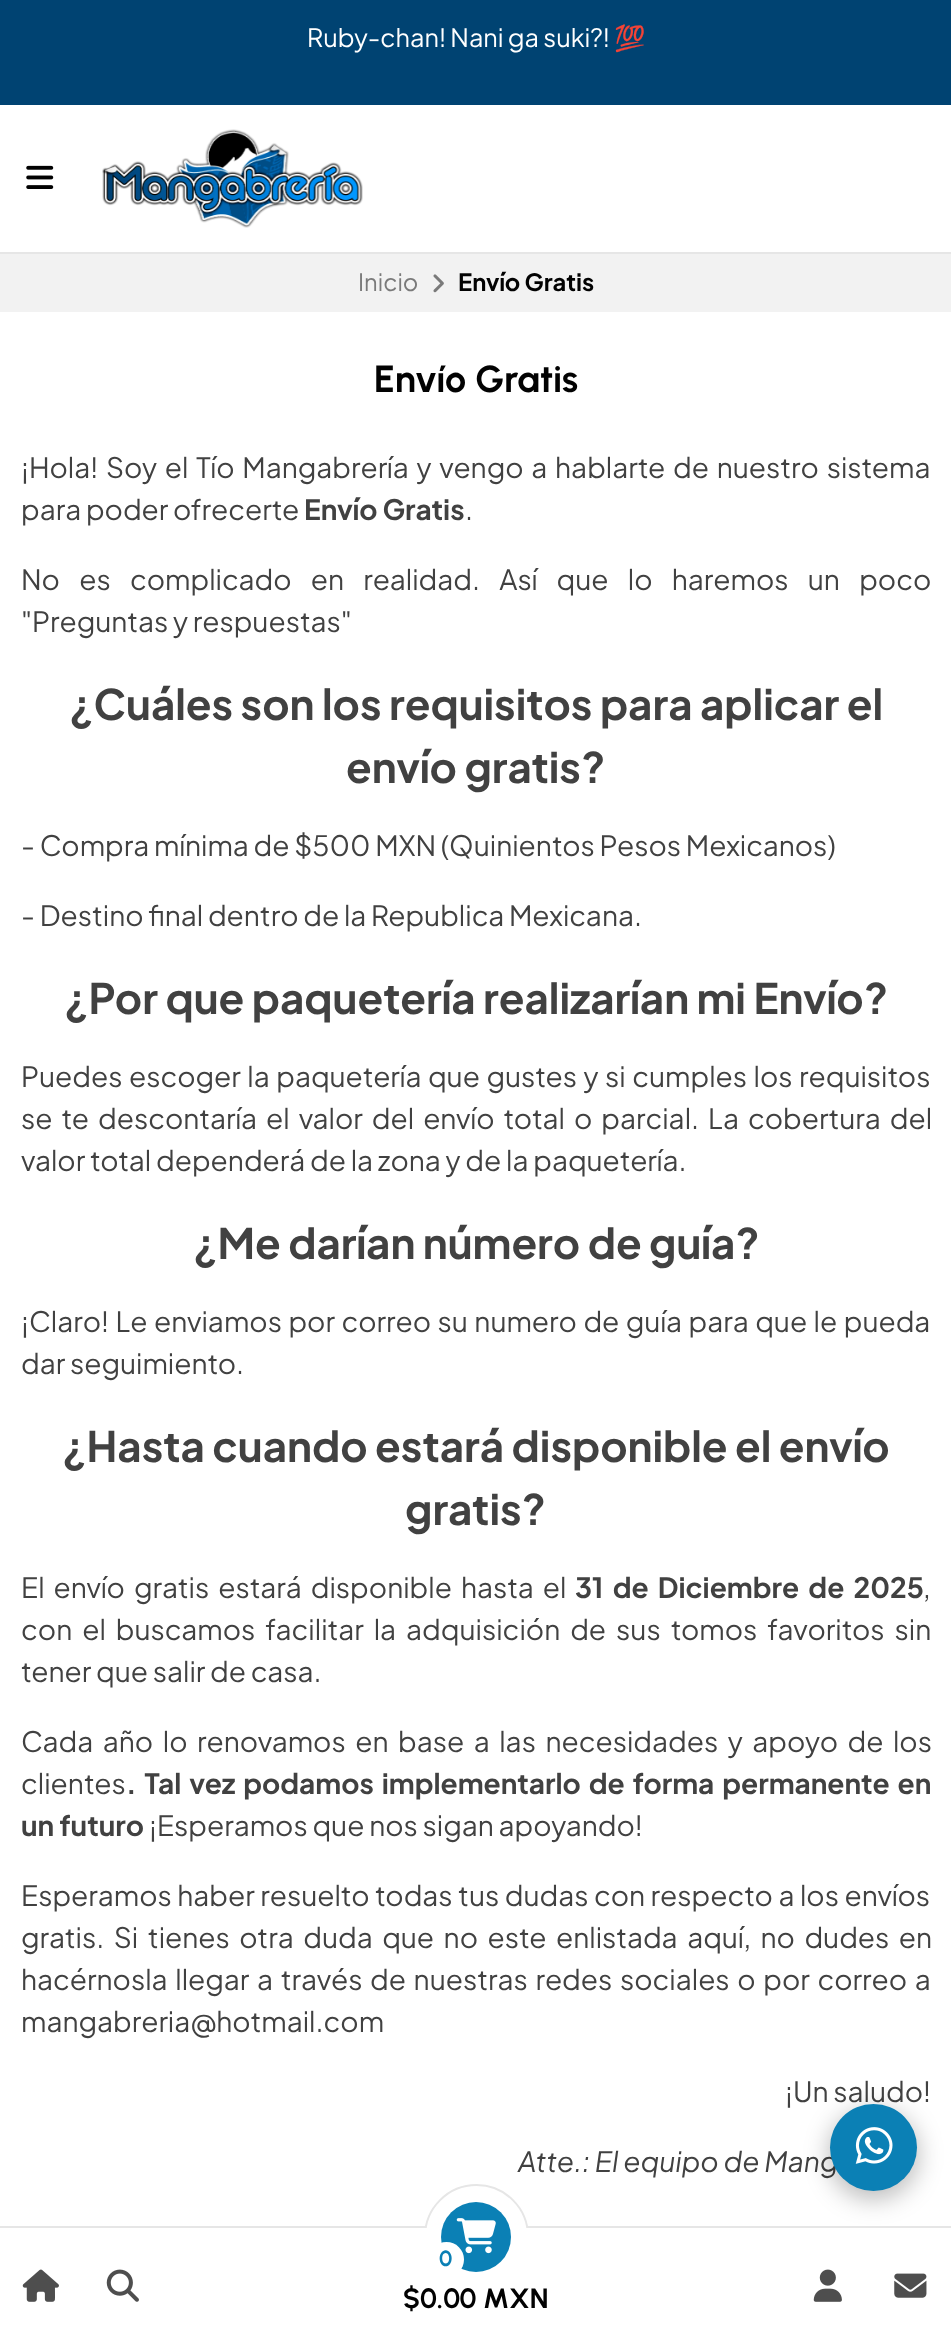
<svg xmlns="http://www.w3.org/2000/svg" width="951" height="2331">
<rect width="100%" height="100%" fill="#fff"/>
<rect y="252" width="951" height="2" fill="#e6e6e6"/>
<rect width="951" height="105" fill="#004372"/>
<text x="307" y="47" style="font-family:Plus Jakarta Sans;font-size:25.25px;fill:#fff">Ruby-chan! Nani ga suki?!</text>
<text x="614" y="47" style="font-family:Noto Color Emoji;font-size:25.25px;fill:#fff">💯</text>
<image x="26" y="165" width="28" height="24" href="media/1.png"/>
<image x="102" y="129" width="261" height="99" href="media/2.png"/>
<rect y="2226" width="951" height="2" fill="#e6e6e6"/>
<circle cx="476.5" cy="2236.5" r="51.5" fill="#fff" stroke="#e6e6e6" stroke-width="2"/>
<rect x="424" y="2228" width="105" height="61" fill="#fff"/>
<image x="22" y="2269" width="37" height="33" href="media/3.png"/>
<image x="106" y="2269" width="33" height="33" href="media/4.png"/>
<circle cx="476" cy="2237" r="35" fill="#0b80b5"/>
<image x="456" y="2218" width="40" height="36" href="media/5.png"/>
<circle cx="446.5" cy="2259.5" r="17.5" fill="#fff"/>
<text x="439" y="2266" style="font-family:Urbanist;font-size:22px;font-weight:bold;fill:#0b80b5">0</text>
<text x="403" y="2308" style="font-family:Urbanist;font-size:28px;font-weight:bold;fill:#020202">$0.00 MXN</text>
<image x="813" y="2269" width="29" height="33" href="media/6.png"/>
<image x="894" y="2273" width="33" height="25" href="media/7.png"/>
<rect y="254" width="951" height="58" fill="#f2f2f2"/>
<text x="358" y="291" style="font-family:Plus Jakarta Sans;font-size:23.75px;fill:#7a7a7a">Inicio</text>
<image x="433" y="274" width="11" height="19" href="media/8.png"/>
<text x="458" y="291" style="font-family:Plus Jakarta Sans;font-size:23.75px;font-weight:bold;fill:#020202">Envío Gratis</text>
<text x="374" y="392" style="font-family:Urbanist;font-size:37.75px;font-weight:bold;fill:#020202">Envío Gratis</text>
<text x="21" y="478" word-spacing="3" style="font-family:Plus Jakarta Sans;font-size:28px;fill:#414141">¡Hola! Soy el Tío Mangabrería y vengo a hablarte de nuestro sistema</text>
<text x="21" y="520" style="font-family:Plus Jakarta Sans;font-size:28px;fill:#414141">para poder ofrecerte</text>
<text x="304" y="520" style="font-family:Plus Jakarta Sans;font-size:28px;font-weight:bold;fill:#414141">Envío Gratis</text>
<text x="465" y="520" style="font-family:Plus Jakarta Sans;font-size:28px;fill:#414141">.</text>
<text x="21" y="590" word-spacing="14.5" style="font-family:Plus Jakarta Sans;font-size:28px;fill:#414141">No es complicado en realidad. Así que lo haremos un poco</text>
<text x="21" y="632" style="font-family:Plus Jakarta Sans;font-size:28px;fill:#414141">"Preguntas y respuestas"</text>
<text x="69" y="720" style="font-family:Plus Jakarta Sans;font-size:42px;font-weight:bold;fill:#414141">¿Cuáles son los requisitos para aplicar el</text>
<text x="346" y="783" style="font-family:Plus Jakarta Sans;font-size:42px;font-weight:bold;fill:#414141">envío gratis?</text>
<text x="21" y="856" style="font-family:Plus Jakarta Sans;font-size:28px;fill:#414141">- Compra mínima de $500 MXN (Quinientos Pesos Mexicanos)</text>
<text x="21" y="926" style="font-family:Plus Jakarta Sans;font-size:28px;fill:#414141">- Destino final dentro de la Republica Mexicana.</text>
<text x="64" y="1014" style="font-family:Plus Jakarta Sans;font-size:42px;font-weight:bold;fill:#414141">¿Por que paquetería realizarían mi Envío?</text>
<text x="21" y="1087" word-spacing="1.75" style="font-family:Plus Jakarta Sans;font-size:28px;fill:#414141">Puedes escoger la paquetería que gustes y si cumples los requisitos</text>
<text x="21" y="1129" word-spacing="4.25" style="font-family:Plus Jakarta Sans;font-size:28px;fill:#414141">se te descontaría el valor del envío total o parcial. La cobertura del</text>
<text x="21" y="1171" style="font-family:Plus Jakarta Sans;font-size:28px;fill:#414141">valor total dependerá de la zona y de la paquetería.</text>
<text x="193" y="1259" style="font-family:Plus Jakarta Sans;font-size:42px;font-weight:bold;fill:#414141">¿Me darían número de guía?</text>
<text x="21" y="1332" word-spacing="1.75" style="font-family:Plus Jakarta Sans;font-size:28px;fill:#414141">¡Claro! Le enviamos por correo su numero de guía para que le pueda</text>
<text x="21" y="1374" style="font-family:Plus Jakarta Sans;font-size:28px;fill:#414141">dar seguimiento.</text>
<text x="62" y="1462" style="font-family:Plus Jakarta Sans;font-size:42px;font-weight:bold;fill:#414141">¿Hasta cuando estará disponible el envío</text>
<text x="405" y="1525" style="font-family:Plus Jakarta Sans;font-size:42px;font-weight:bold;fill:#414141">gratis?</text>
<text x="21" y="1598" word-spacing="4.25" style="font-family:Plus Jakarta Sans;font-size:28px;fill:#414141">El envío gratis estará disponible hasta el</text>
<text x="575" y="1598" word-spacing="4.25" style="font-family:Plus Jakarta Sans;font-size:28px;font-weight:bold;fill:#414141">31 de Diciembre de 2025</text>
<text x="923" y="1598" style="font-family:Plus Jakarta Sans;font-size:28px;fill:#414141">,</text>
<text x="21" y="1640" word-spacing="5.25" style="font-family:Plus Jakarta Sans;font-size:28px;fill:#414141">con el buscamos facilitar la adquisición de sus tomos favoritos sin</text>
<text x="21" y="1682" style="font-family:Plus Jakarta Sans;font-size:28px;fill:#414141">tener que salir de casa.</text>
<text x="21" y="1752" word-spacing="4.75" style="font-family:Plus Jakarta Sans;font-size:28px;fill:#414141">Cada año lo renovamos en base a las necesidades y apoyo de los</text>
<text x="21" y="1794" style="font-family:Plus Jakarta Sans;font-size:28px;fill:#414141">clientes</text>
<text x="126" y="1794" word-spacing="2.9" style="font-family:Plus Jakarta Sans;font-size:28px;font-weight:bold;fill:#414141">. Tal vez podamos implementarlo de forma permanente en</text>
<text x="21" y="1836" style="font-family:Plus Jakarta Sans;font-size:28px;font-weight:bold;fill:#414141">un futuro</text>
<text x="149" y="1836" style="font-family:Plus Jakarta Sans;font-size:28px;fill:#414141">¡Esperamos que nos sigan apoyando!</text>
<text x="21" y="1906" word-spacing="0.75" style="font-family:Plus Jakarta Sans;font-size:28px;fill:#414141">Esperamos haber resuelto todas tus dudas con respecto a los envíos</text>
<text x="21" y="1948" word-spacing="4.75" style="font-family:Plus Jakarta Sans;font-size:28px;fill:#414141">gratis. Si tienes otra duda que no este enlistada aquí, no dudes en</text>
<text x="21" y="1990" word-spacing="2.9" style="font-family:Plus Jakarta Sans;font-size:28px;fill:#414141">hacérnosla llegar a través de nuestras redes sociales o por correo a</text>
<text x="21" y="2032" style="font-family:Plus Jakarta Sans;font-size:28px;fill:#414141">mangabreria@hotmail.com</text>
<text x="785" y="2102" style="font-family:Plus Jakarta Sans;font-size:28px;fill:#414141">¡Un saludo!</text>
<text x="518" y="2172" style="font-family:Plus Jakarta Sans;font-size:28px;font-style:italic;fill:#414141">Atte.: El equipo de Mang</text>
<rect x="830" y="2111" width="87" height="87" rx="43.5" fill="#0202024d" filter="blur(13px)"/>
<circle cx="873.5" cy="2147.5" r="43.5" fill="#0b80b5"/>
<image x="855" y="2127" width="38" height="37" href="media/9.png"/>
</svg>
